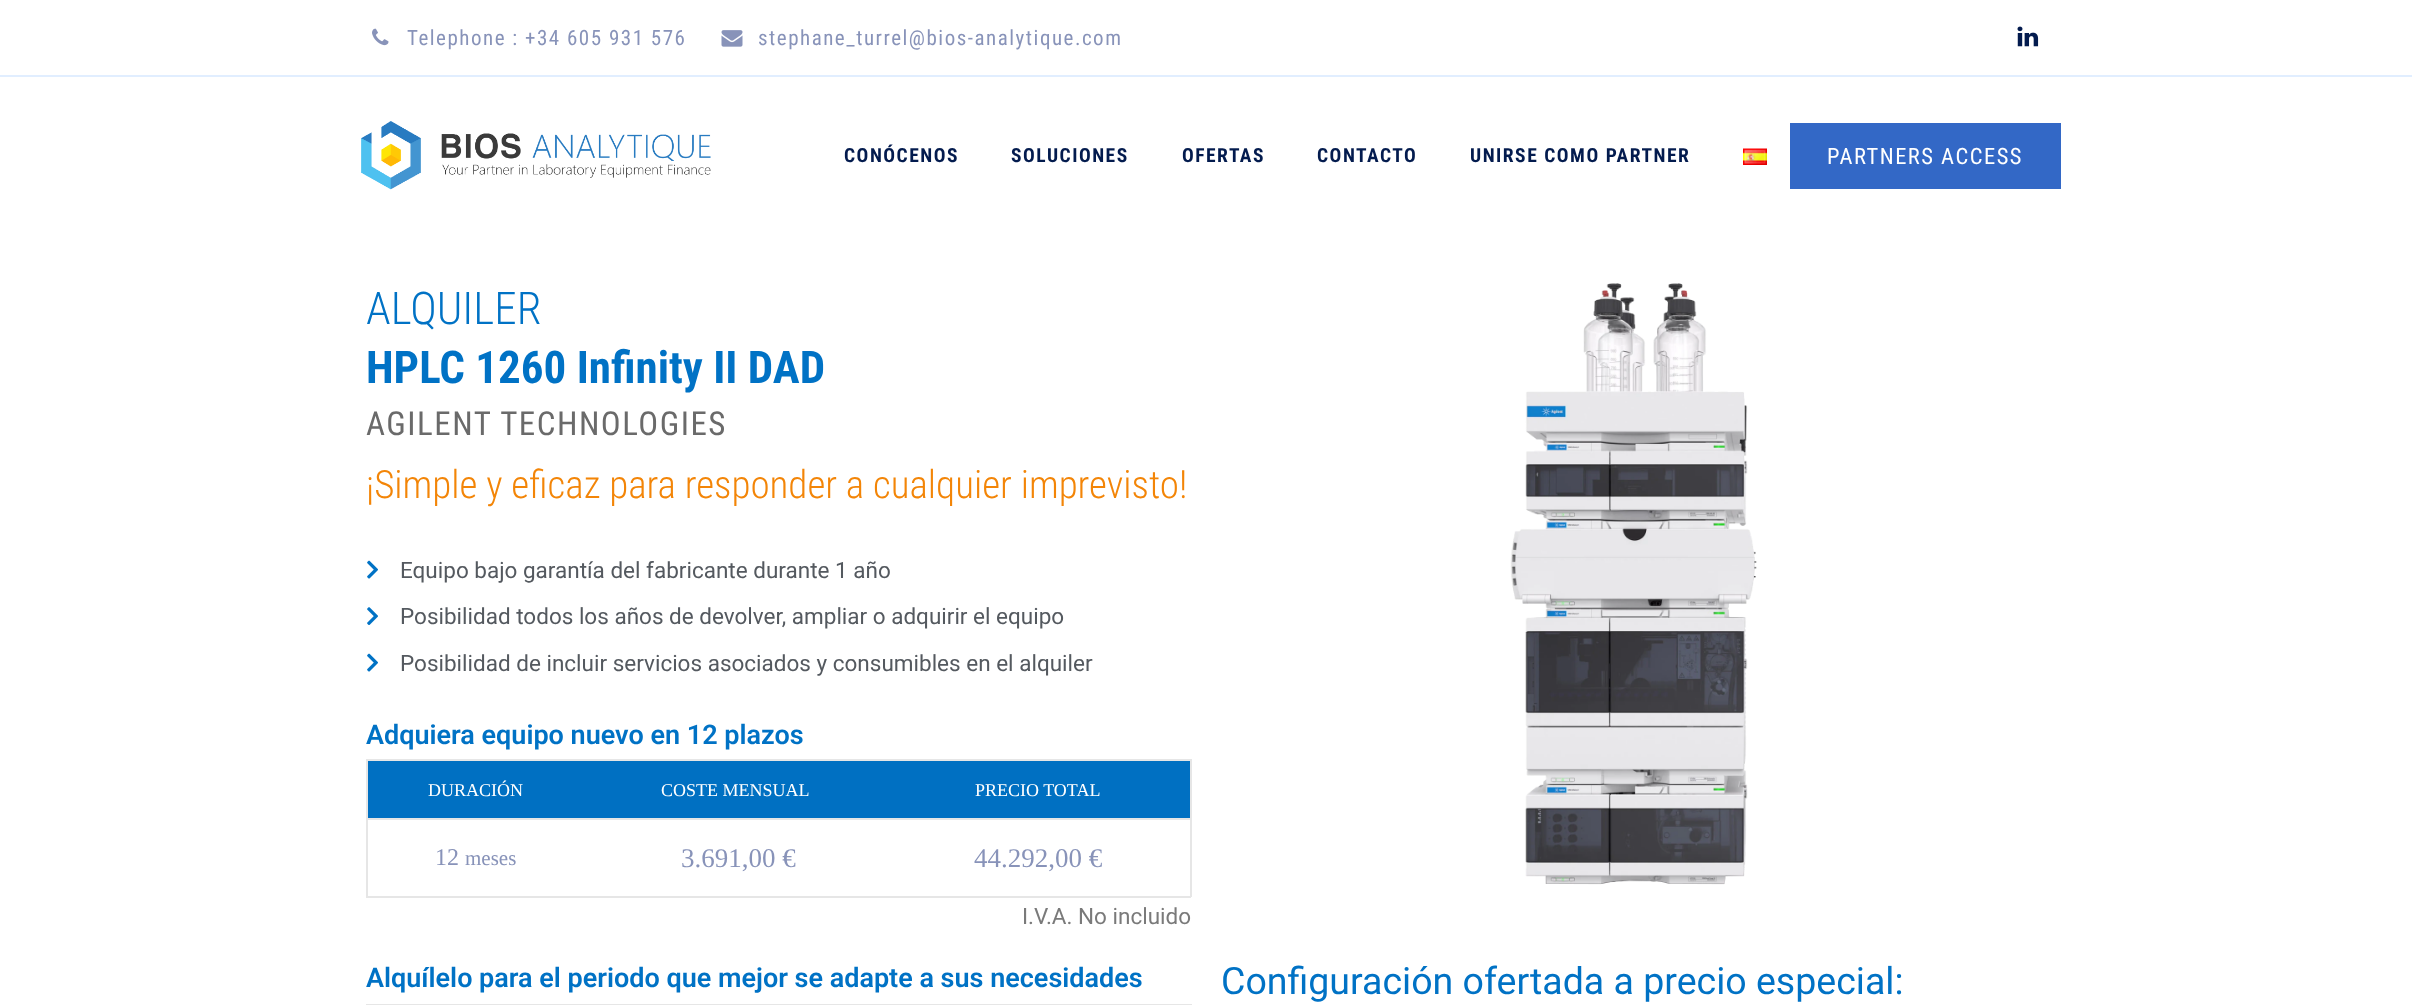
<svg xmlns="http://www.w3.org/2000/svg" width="2412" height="1005">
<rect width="100%" height="100%" fill="#fff"/>
<rect y="75" width="2412" height="2" fill="#e1eeff"/>
<image x="372" y="28" width="17" height="18" href="media/1.png"/>
<text x="407" y="45" style="font-family:Roboto Condensed;font-size:21px;letter-spacing:1.5px;fill:#8893b9">Telephone : +34 605 931 576</text>
<image x="721" y="30" width="22" height="17" href="media/2.png"/>
<text x="758" y="45" style="font-family:Roboto Condensed;font-size:21px;letter-spacing:1.5px;fill:#8893b9">stephane_turrel@bios-analytique.com</text>
<image x="2017" y="26" width="22" height="21" href="media/3.png"/>
<image x="361" y="121" width="350" height="69" href="media/4.png"/>
<text x="844" y="162" style="font-family:Roboto Condensed;font-size:19.5px;font-weight:bold;letter-spacing:1.5px;fill:#031b4e">CONÓCENOS</text>
<text x="1011" y="162" style="font-family:Roboto Condensed;font-size:19.5px;font-weight:bold;letter-spacing:1.5px;fill:#031b4e">SOLUCIONES</text>
<text x="1182" y="162" style="font-family:Roboto Condensed;font-size:19.5px;font-weight:bold;letter-spacing:1.5px;fill:#031b4e">OFERTAS</text>
<text x="1317" y="162" style="font-family:Roboto Condensed;font-size:19.5px;font-weight:bold;letter-spacing:1.5px;fill:#031b4e">CONTACTO</text>
<text x="1470" y="162" style="font-family:Roboto Condensed;font-size:19.5px;font-weight:bold;letter-spacing:1.5px;fill:#031b4e">UNIRSE COMO PARTNER</text>
<image x="1743" y="148" width="24" height="17" href="media/5.png"/>
<rect x="1790" y="123" width="271" height="66" fill="#3368c6"/>
<text x="1827" y="164" style="font-family:Roboto Condensed;font-size:22.5px;letter-spacing:1.5px;fill:#fff">PARTNERS ACCESS</text>
<text x="366" y="324" style="font-family:Roboto Condensed;font-size:45px;font-weight:300;fill:#0072c5">ALQUILER</text>
<text x="366" y="383" style="font-family:Roboto Condensed;font-size:45px;font-weight:bold;fill:#0072c5">HPLC 1260 Infinity II DAD</text>
<text x="366" y="435" style="font-family:Roboto Condensed;font-size:33px;letter-spacing:1.5px;fill:#6a6a6a">AGILENT TECHNOLOGIES</text>
<text x="366" y="498" style="font-family:Roboto Condensed;font-size:39px;font-weight:300;fill:#f38507">¡Simple y eficaz para responder a cualquier imprevisto!</text>
<image x="367" y="560" width="11" height="19" href="media/6.png"/>
<text x="400" y="578" style="font-family:Roboto;font-size:22.5px;fill:#54595f">Equipo bajo garantía del fabricante durante 1 año</text>
<image x="367" y="607" width="11" height="18" href="media/7.png"/>
<text x="400" y="624" style="font-family:Roboto;font-size:22.5px;fill:#54595f">Posibilidad todos los años de devolver, ampliar o adquirir el equipo</text>
<image x="367" y="653" width="11" height="19" href="media/6.png"/>
<text x="400" y="671" style="font-family:Roboto;font-size:22.5px;fill:#54595f">Posibilidad de incluir servicios asociados y consumibles en el alquiler</text>
<text x="366" y="744" style="font-family:Roboto;font-size:27px;font-weight:600;fill:#0072c5">Adquiera equipo nuevo en 12 plazos</text>
<rect x="366" y="759" width="825" height="2" fill="#e6e6e6"/>
<rect x="366" y="818" width="825" height="2" fill="#e6e6e6"/>
<rect x="1190" y="818" width="2" height="79" fill="#e6e6e6"/>
<rect x="1190" y="759" width="2" height="60" fill="#e6e6e6"/>
<rect x="366" y="896" width="825" height="2" fill="#e6e6e6"/>
<rect x="366" y="818" width="2" height="79" fill="#e6e6e6"/>
<rect x="366" y="759" width="2" height="60" fill="#e6e6e6"/>
<rect x="368" y="761" width="822" height="57" fill="#0070c2"/>
<text x="428" y="796" style="font-family:Liberation Serif;font-size:18px;fill:#fff">DURACIÓN</text>
<text x="661" y="796" style="font-family:Liberation Serif;font-size:18px;fill:#fff">COSTE MENSUAL</text>
<text x="975" y="796" style="font-family:Liberation Serif;font-size:18px;fill:#fff">PRECIO TOTAL</text>
<text x="435" y="865" style="font-family:Liberation Serif;font-size:24px;fill:#8893b9">12</text>
<text x="465" y="865" style="font-family:Liberation Serif;font-size:21px;fill:#8893b9">meses</text>
<text x="681" y="867" style="font-family:Liberation Serif;font-size:27px;fill:#8893b9">3.691,00 €</text>
<text x="974" y="867" style="font-family:Liberation Serif;font-size:27px;fill:#8893b9">44.292,00 €</text>
<text x="1022" y="924" style="font-family:Roboto;font-size:22.5px;fill:#7a7a7a">I.V.A. No incluido</text>
<text x="366" y="987" style="font-family:Roboto;font-size:27px;font-weight:600;fill:#0072c5">Alquílelo para el periodo que mejor se adapte a sus necesidades</text>
<rect x="366" y="1004" width="826" height="1" fill="#e6e6e6"/>
<image x="1510" y="283" width="247" height="602" href="media/8.png"/>
<text x="1221" y="994" style="font-family:Roboto;font-size:37.5px;fill:#0072c5">Configuración ofertada a precio especial:</text>
</svg>
